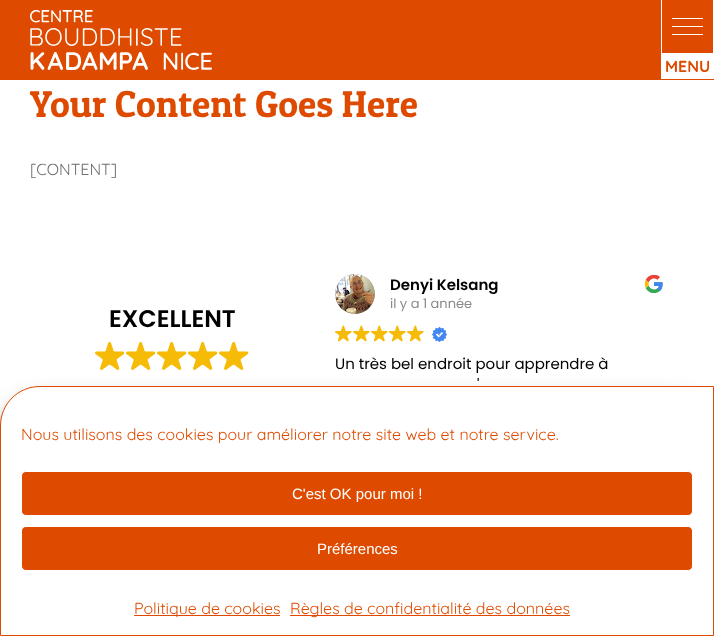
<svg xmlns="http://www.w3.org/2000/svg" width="714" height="636">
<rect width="100%" height="100%" fill="#fff"/>
<rect width="714" height="80" fill="#de4b00"/>
<rect x="713" width="1" height="53" fill="#fff"/>
<rect x="661" width="1" height="53" fill="#fff"/>
<rect x="672" y="26" width="31" height="1" fill="#fff"/>
<rect x="672" y="18" width="31" height="1" fill="#fff"/>
<rect x="672" y="34" width="31" height="1" fill="#fff"/>
<rect x="661" y="53" width="53" height="26" fill="#fff"/>
<text x="665" y="72" style="font-family:Quicksand;font-size:16px;font-weight:bold;fill:#de4b00">MENU</text>
<image x="30" y="10" width="182" height="60" href="media/1.png"/>
<text x="30" y="117" style="font-family:Patua One;font-size:37.5px;fill:#de4b00">Your Content Goes Here</text>
<text x="30" y="175" style="font-family:Quicksand;font-size:16px;fill:#6d6d6d">[CONTENT]</text>
<text x="109" y="327" style="font-family:Poppins;font-size:24px;font-weight:600;fill:#000">EXCELLENT</text>
<image x="95" y="342" width="30" height="28" href="media/2.png"/>
<image x="126" y="342" width="30" height="28" href="media/2.png"/>
<image x="157" y="342" width="30" height="28" href="media/2.png"/>
<image x="188" y="342" width="30" height="28" href="media/2.png"/>
<image x="219" y="342" width="30" height="28" href="media/2.png"/>
<image x="335" y="274" width="40" height="40" href="media/3.png"/>
<text x="390" y="290" style="font-family:Poppins;font-size:15px;font-weight:600;fill:#000">Denyi Kelsang</text>
<text x="390" y="308" style="font-family:Poppins;font-size:13px;fill:#8a8a8a">il y a 1 année</text>
<image x="644" y="274" width="19" height="20" href="media/4.png"/>
<image x="335" y="325" width="17" height="17" href="media/5.png"/>
<image x="353" y="325" width="17" height="17" href="media/5.png"/>
<image x="371" y="325" width="17" height="17" href="media/5.png"/>
<image x="389" y="325" width="17" height="17" href="media/5.png"/>
<image x="407" y="325" width="17" height="17" href="media/5.png"/>
<image x="432" y="327" width="15" height="15" href="media/6.png"/>
<text x="335" y="369" style="font-family:Poppins;font-size:15px;fill:#000">Un très bel endroit pour apprendre à</text>
<text x="477" y="390" style="font-family:Poppins;font-size:15px;fill:#000">'</text>
<rect y="392" width="714" height="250" rx="40" fill="#0000003b" filter="blur(3px)"/>
<rect y="396" width="714" height="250" rx="40" fill="#00000030" filter="blur(10px)"/>
<path d="M40 386.5h673.5v249h-713v-209.5c0-22 17.5-39.5 39.5-39.5z" fill="#fff" stroke="#de4b00"/>
<text x="21" y="440" style="font-family:Quicksand;font-size:16px;fill:#de4b00">Nous utilisons des cookies pour améliorer notre site web et notre service.</text>
<rect x="21.5" y="471.5" width="671" height="44" rx="4.5" fill="#de4b00" stroke="#fff"/>
<text x="292" y="499" style="font-family:Liberation Sans;font-size:15px;fill:#fff">C'est OK pour moi !</text>
<rect x="21.5" y="526.5" width="671" height="44" rx="4.5" fill="#de4b00" stroke="#fff"/>
<text x="317" y="554" style="font-family:Liberation Sans;font-size:15px;fill:#fff">Préférences</text>
<rect x="134" y="615" width="146" height="1" fill="#de4b00"/>
<text x="134" y="614" style="font-family:Quicksand;font-size:16px;fill:#de4b00">Politique de cookies</text>
<rect x="290" y="615" width="280" height="1" fill="#de4b00"/>
<text x="290" y="614" style="font-family:Quicksand;font-size:16px;fill:#de4b00">Règles de confidentialité des données</text>
</svg>
